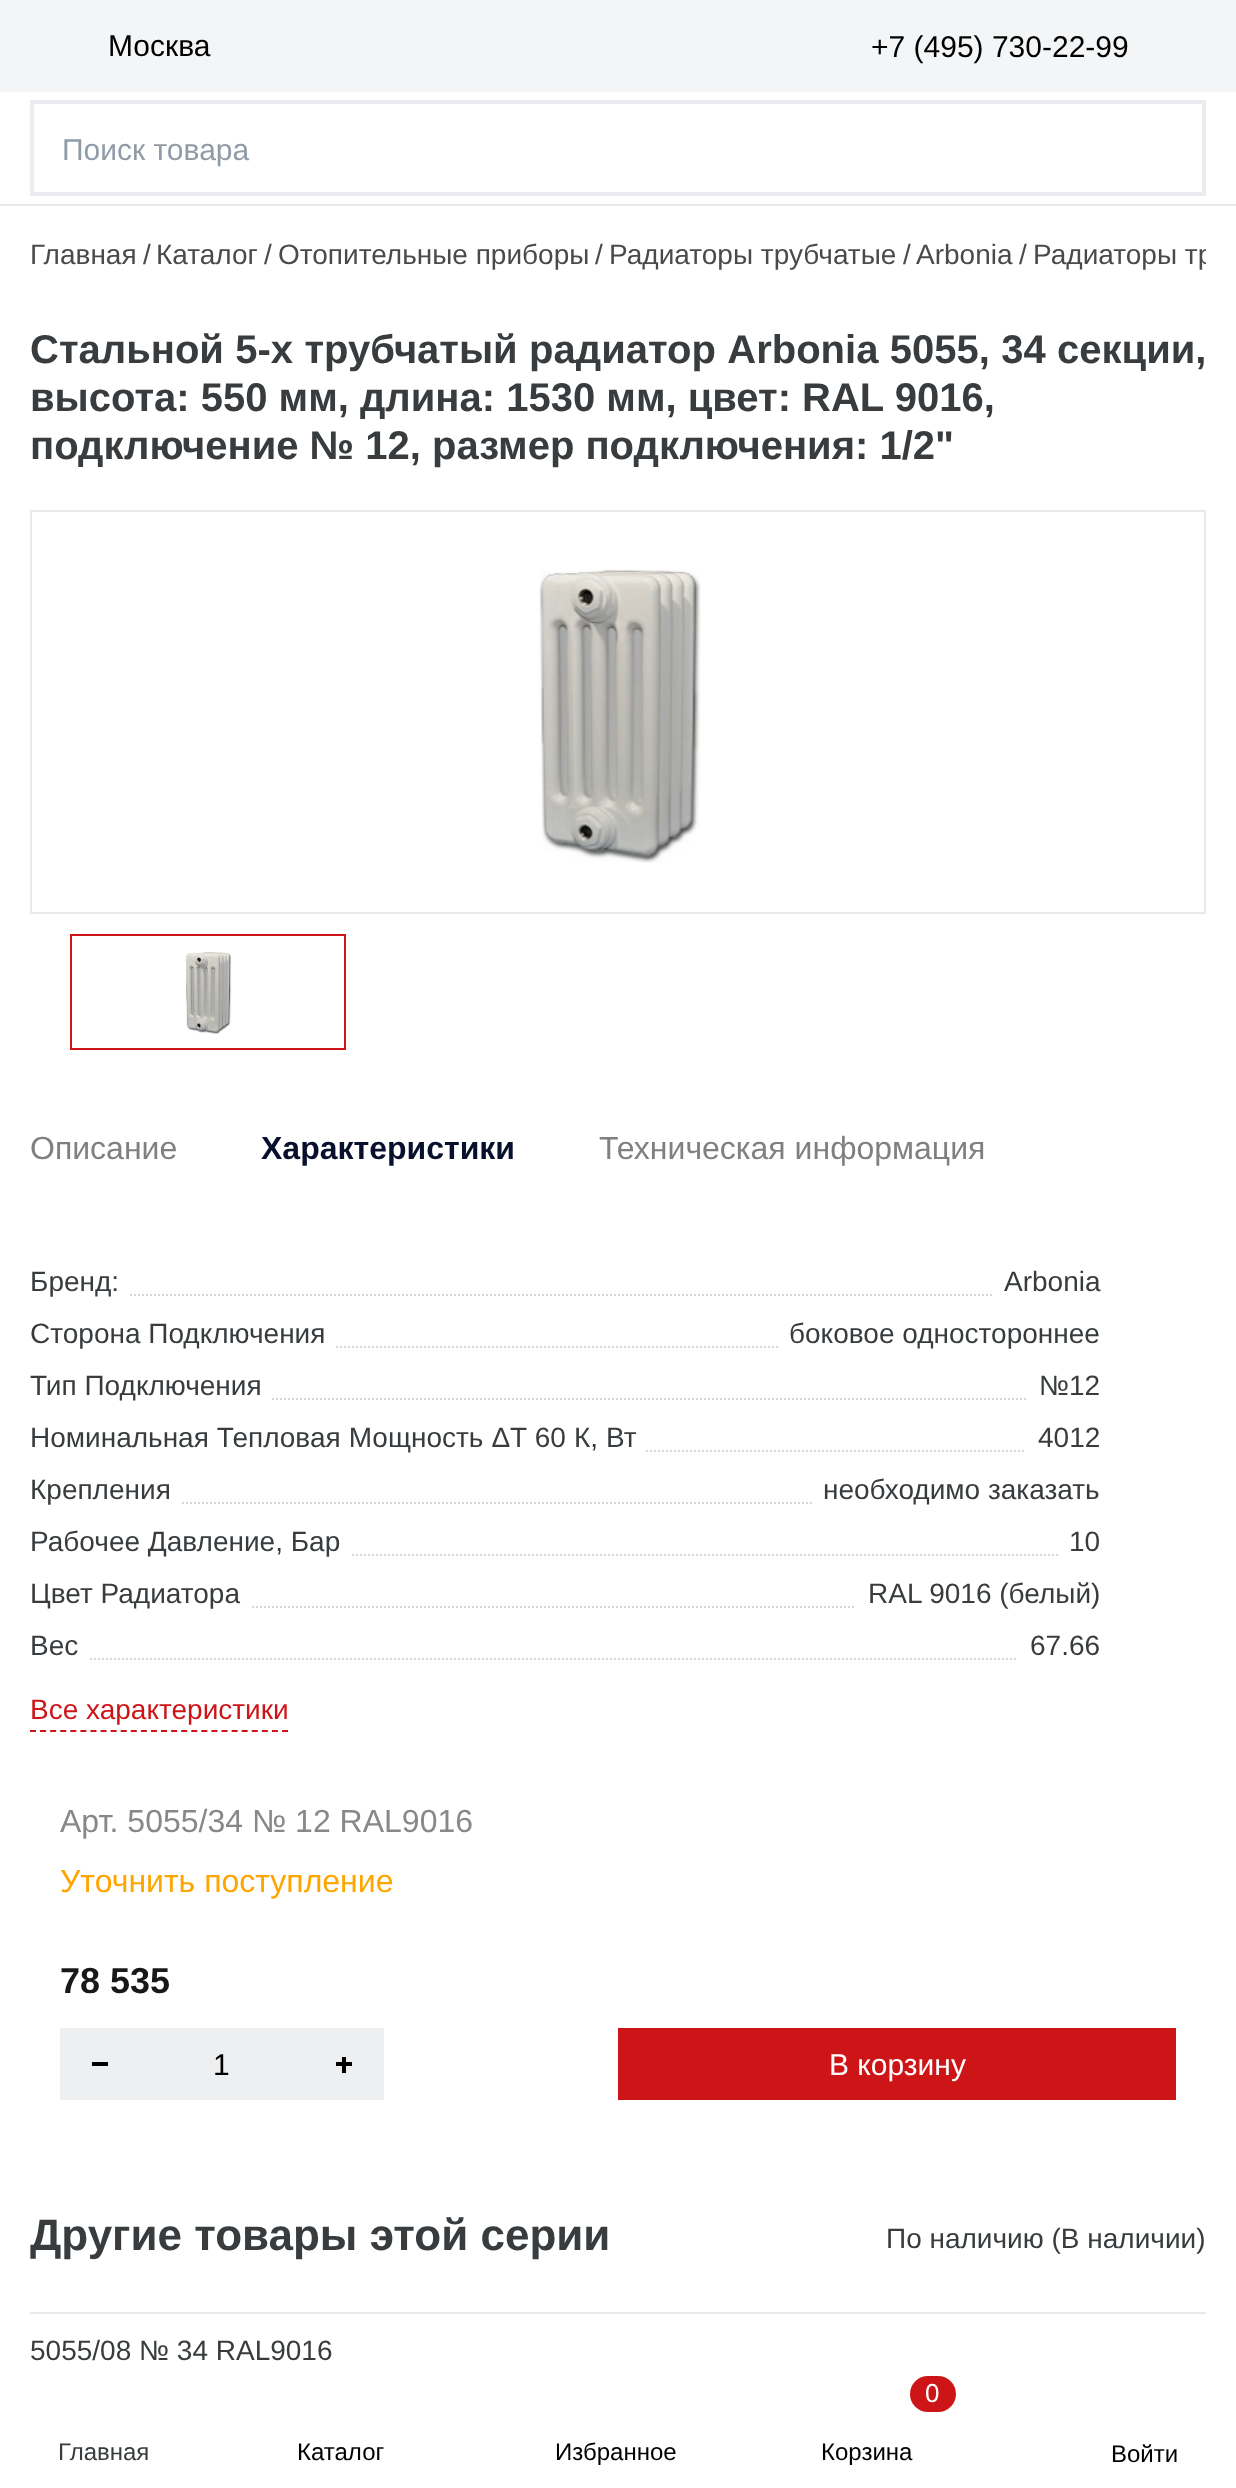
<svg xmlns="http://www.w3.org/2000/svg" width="1236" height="2488">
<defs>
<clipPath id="clip1"><rect x="30" y="226" width="1176" height="60"/></clipPath>
</defs>
<rect width="100%" height="100%" fill="#fff"/>
<rect y="204" width="1236" height="2" fill="#e7eaed"/>
<rect width="1236" height="92" fill="#f3f5f7"/>
<text x="108" y="56" style="font-family:Liberation Sans;font-size:30px;fill:#000">Москва</text>
<text x="871" y="57" style="font-family:Liberation Sans;font-size:30px;fill:#000">+7 (495) 730-22-99</text>
<rect x="32" y="102" width="1172" height="92" fill="none" stroke="#ebecf0" stroke-width="4"/>
<text x="62" y="160" style="font-family:Liberation Sans;font-size:30px;fill:#909ba8">Поиск товара</text>
<text x="58" y="2460" style="font-family:Liberation Sans;font-size:24px;fill:#383c3e">Главная</text>
<text x="297" y="2460" style="font-family:Liberation Sans;font-size:24px;fill:#000">Каталог</text>
<text x="555" y="2460" style="font-family:Liberation Sans;font-size:24px;fill:#000">Избранное</text>
<rect x="910" y="2376" width="46" height="36" rx="18" fill="#cd1518"/>
<text x="925" y="2402" style="font-family:Liberation Sans;font-size:26px;fill:#fff">0</text>
<text x="821" y="2460" style="font-family:Liberation Sans;font-size:24px;fill:#000">Корзина</text>
<text x="1111" y="2462" style="font-family:Liberation Sans;font-size:24px;fill:#000">Войти</text>
<text x="30" y="264" style="font-family:Liberation Sans;font-size:28px;fill:#4a4a4a">Главная</text>
<text x="143" y="264" style="font-family:Liberation Sans;font-size:28px;fill:#4a4a4a">/</text>
<text x="156" y="264" style="font-family:Liberation Sans;font-size:28px;fill:#4a4a4a">Каталог</text>
<text x="264" y="264" style="font-family:Liberation Sans;font-size:28px;fill:#4a4a4a">/</text>
<text x="278" y="264" style="font-family:Liberation Sans;font-size:28px;fill:#4a4a4a">Отопительные приборы</text>
<text x="595" y="264" style="font-family:Liberation Sans;font-size:28px;fill:#4a4a4a">/</text>
<text x="609" y="264" style="font-family:Liberation Sans;font-size:28px;fill:#4a4a4a">Радиаторы трубчатые</text>
<text x="903" y="264" style="font-family:Liberation Sans;font-size:28px;fill:#4a4a4a">/</text>
<text x="916" y="264" style="font-family:Liberation Sans;font-size:28px;fill:#4a4a4a">Arbonia</text>
<text x="1019" y="264" style="font-family:Liberation Sans;font-size:28px;fill:#4a4a4a">/</text>
<g clip-path="url(#clip1)">
<text x="1033" y="264" style="font-family:Liberation Sans;font-size:28px;fill:#4a4a4a">Радиаторы тр</text>
</g>
<text x="30" y="363" word-spacing="0.25" style="font-family:Liberation Sans;font-size:40px;font-weight:bold;fill:#383c3e">Стальной 5-х трубчатый радиатор Arbonia 5055, 34 секции,</text>
<text x="30" y="411" style="font-family:Liberation Sans;font-size:40px;font-weight:bold;fill:#383c3e">высота: 550 мм, длина: 1530 мм, цвет: RAL 9016,</text>
<text x="30" y="459" style="font-family:Liberation Sans;font-size:40px;font-weight:bold;fill:#383c3e">подключение № 12, размер подключения: 1/2"</text>
<rect x="31" y="511" width="1174" height="402" fill="none" stroke="#e7eaed" stroke-width="2"/>
<image x="539" y="569" width="162" height="294" href="media/1.png"/>
<rect x="71" y="935" width="274" height="114" fill="none" stroke="#cd1518" stroke-width="2"/>
<image x="185" y="952" width="47" height="82" href="media/2.png"/>
<text x="30" y="1159" style="font-family:Liberation Sans;font-size:32px;fill:#808080">Описание</text>
<text x="261" y="1159" style="font-family:Liberation Sans;font-size:32px;font-weight:bold;fill:#07102d">Характеристики</text>
<text x="599" y="1159" style="font-family:Liberation Sans;font-size:32px;fill:#808080">Техническая информация</text>
<text x="30" y="1291" style="font-family:Liberation Sans;font-size:28px;fill:#383c3e">Бренд:</text>
<path d="M130 1295h862" fill="none" stroke="#d4d7db" stroke-width="2" stroke-dasharray="2 2"/>
<text x="1004" y="1291" style="font-family:Liberation Sans;font-size:28px;fill:#383c3e">Arbonia</text>
<text x="30" y="1343" style="font-family:Liberation Sans;font-size:28px;fill:#383c3e">Сторона Подключения</text>
<path d="M336 1347h442" fill="none" stroke="#d4d7db" stroke-width="2" stroke-dasharray="2 2"/>
<text x="789" y="1343" style="font-family:Liberation Sans;font-size:28px;fill:#383c3e">боковое одностороннее</text>
<text x="30" y="1395" style="font-family:Liberation Sans;font-size:28px;fill:#383c3e">Тип Подключения</text>
<text x="1039" y="1395" style="font-family:Liberation Sans;font-size:28px;fill:#383c3e">№12</text>
<path d="M272 1399h756" fill="none" stroke="#d4d7db" stroke-width="2" stroke-dasharray="2 2"/>
<text x="30" y="1447" word-spacing="0.25" style="font-family:Liberation Sans;font-size:28px;fill:#383c3e">Номинальная Тепловая Мощность ΔT 60 К, Вт</text>
<text x="1038" y="1447" style="font-family:Liberation Sans;font-size:28px;fill:#383c3e">4012</text>
<path d="M646 1451h380" fill="none" stroke="#d4d7db" stroke-width="2" stroke-dasharray="2 2"/>
<text x="30" y="1499" style="font-family:Liberation Sans;font-size:28px;fill:#383c3e">Крепления</text>
<path d="M182 1503h630" fill="none" stroke="#d4d7db" stroke-width="2" stroke-dasharray="2 2"/>
<text x="823" y="1499" style="font-family:Liberation Sans;font-size:28px;fill:#383c3e">необходимо заказать</text>
<text x="30" y="1551" style="font-family:Liberation Sans;font-size:28px;fill:#383c3e">Рабочее Давление, Бар</text>
<text x="1069" y="1551" style="font-family:Liberation Sans;font-size:28px;fill:#383c3e">10</text>
<path d="M352 1555h706" fill="none" stroke="#d4d7db" stroke-width="2" stroke-dasharray="2 2"/>
<text x="30" y="1603" style="font-family:Liberation Sans;font-size:28px;fill:#383c3e">Цвет Радиатора</text>
<path d="M252 1607h604" fill="none" stroke="#d4d7db" stroke-width="2" stroke-dasharray="2 2"/>
<text x="868" y="1603" style="font-family:Liberation Sans;font-size:28px;fill:#383c3e">RAL 9016 (белый)</text>
<text x="30" y="1655" style="font-family:Liberation Sans;font-size:28px;fill:#383c3e">Вес</text>
<text x="1030" y="1655" style="font-family:Liberation Sans;font-size:28px;fill:#383c3e">67.66</text>
<path d="M90 1659h928" fill="none" stroke="#d4d7db" stroke-width="2" stroke-dasharray="2 2"/>
<path d="M30 1731h258" fill="none" stroke="#cd1518" stroke-width="2" stroke-dasharray="6 4.08"/>
<text x="30" y="1719" style="font-family:Liberation Sans;font-size:28px;fill:#cd1518">Все характеристики</text>
<text x="60" y="1832" style="font-family:Liberation Sans;font-size:32px;fill:#888">Арт. 5055/34 № 12 RAL9016</text>
<text x="60" y="1892" style="font-family:Liberation Sans;font-size:32px;fill:#ffa500">Уточнить поступление</text>
<text x="60" y="1993" style="font-family:Liberation Sans;font-size:36px;font-weight:bold;fill:#181818">78 535</text>
<rect x="60" y="2028" width="324" height="72" fill="#eeeff1"/>
<rect x="92" y="2062" width="16" height="4" fill="#000"/>
<text x="213" y="2075" style="font-family:Liberation Sans;font-size:30px;fill:#000">1</text>
<rect x="342" y="2057" width="4" height="16" fill="#000"/>
<rect x="336" y="2062" width="16" height="4" fill="#000"/>
<rect x="618" y="2028" width="558" height="72" fill="#cd1518"/>
<text x="829" y="2075" style="font-family:Liberation Sans;font-size:30px;fill:#fff">В корзину</text>
<text x="30" y="2250" style="font-family:Liberation Sans;font-size:44px;font-weight:bold;fill:#383c3e">Другие товары этой серии</text>
<text x="886" y="2248" style="font-family:Liberation Sans;font-size:28px;fill:#383c3e">По наличию (В наличии)</text>
<rect x="30" y="2312" width="1176" height="2" fill="#e7eaed"/>
<text x="30" y="2360" style="font-family:Liberation Sans;font-size:28px;fill:#383c3e">5055/08 № 34 RAL9016</text>
</svg>
